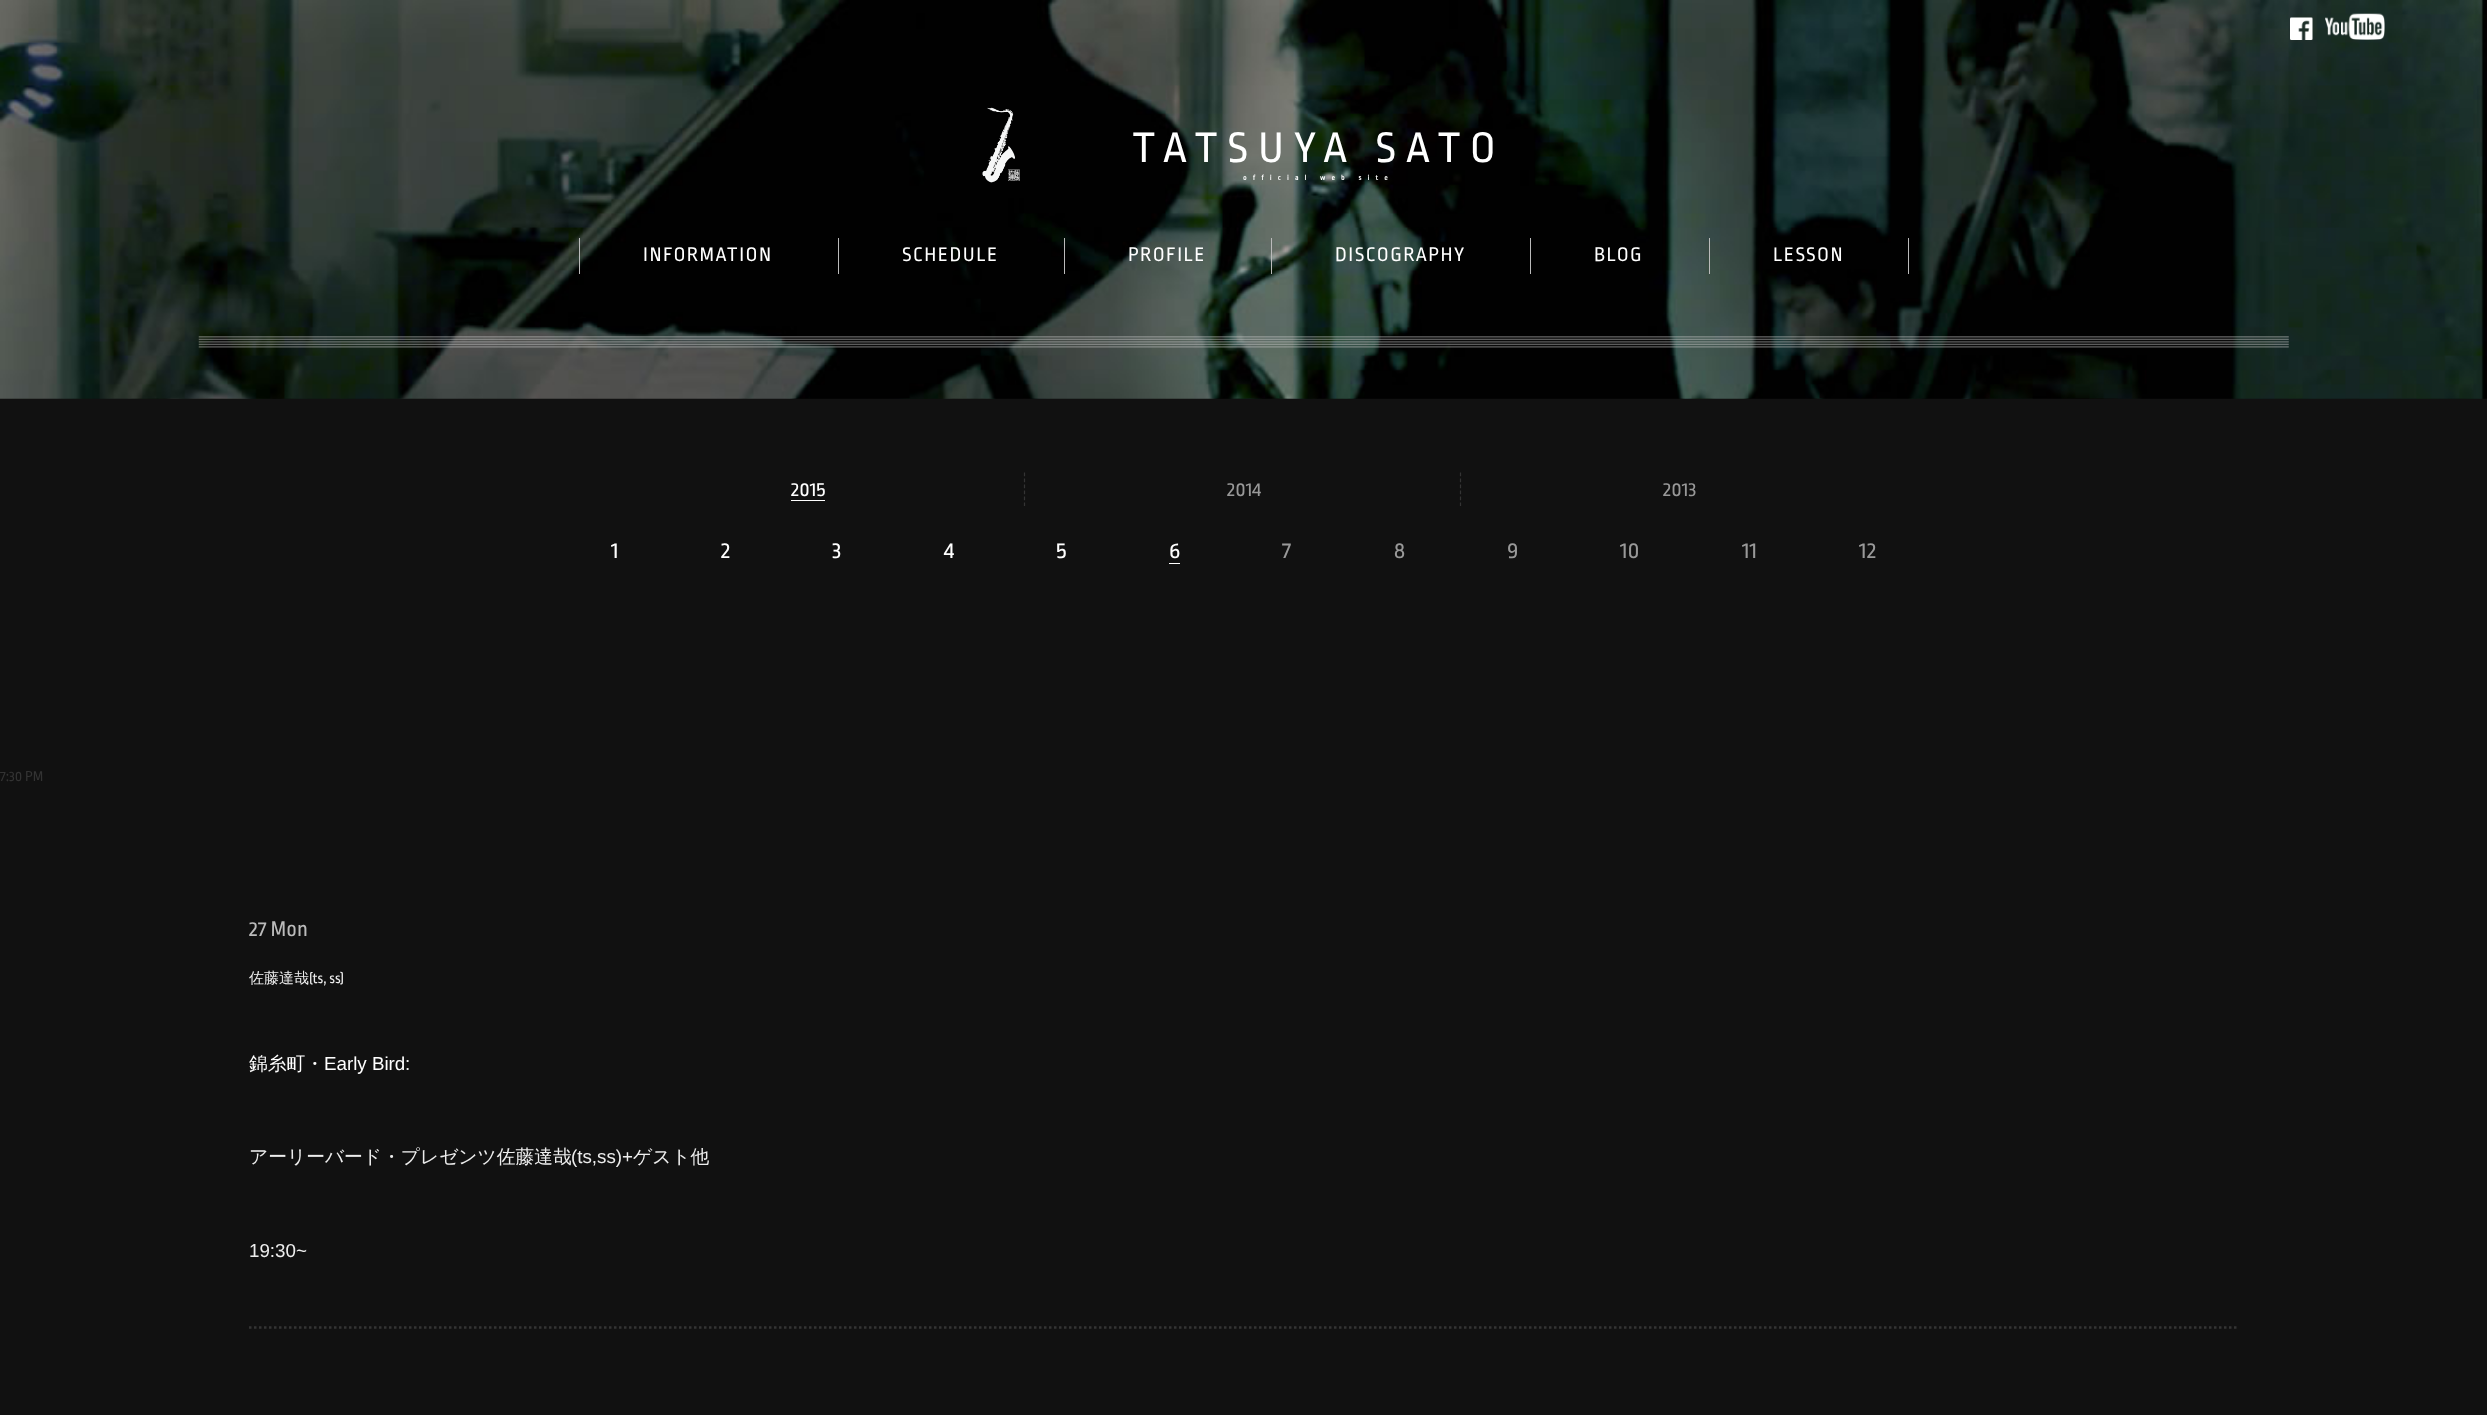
<svg xmlns="http://www.w3.org/2000/svg" width="2487" height="1415">
<rect width="100%" height="100%" fill="#111"/>
<image x="0" y="0" width="2487" height="399" href="media/1.png"/>
<image x="2290" y="17" width="23" height="23" href="media/2.png"/>
<image x="2325" y="13" width="60" height="27" href="media/3.png"/>
<image x="982" y="107" width="38" height="76" href="media/4.png"/>
<text x="1132" y="162" style="font-family:Ropa Sans;font-size:45px;letter-spacing:10px;fill:#fff">TATSUYA SATO</text>
<text x="1243" y="180" style="font-family:Ropa Sans;font-size:7.5px;font-weight:bold;letter-spacing:6.25px;fill:#fff">official web site</text>
<image x="198" y="336" width="2091" height="12" href="media/5.png"/>
<rect x="579" y="238" width="1" height="36" fill="#bbb"/>
<text x="643" y="261" style="font-family:Ropa Sans;font-size:20.75px;letter-spacing:1.5px;fill:#fff">INFORMATION</text>
<rect x="838" y="238" width="1" height="36" fill="#bbb"/>
<text x="902" y="261" style="font-family:Ropa Sans;font-size:20.75px;letter-spacing:1.5px;fill:#fff">SCHEDULE</text>
<rect x="1064" y="238" width="1" height="36" fill="#bbb"/>
<text x="1128" y="261" style="font-family:Ropa Sans;font-size:20.75px;letter-spacing:1.5px;fill:#fff">PROFILE</text>
<rect x="1271" y="238" width="1" height="36" fill="#bbb"/>
<text x="1335" y="261" style="font-family:Ropa Sans;font-size:20.75px;letter-spacing:1.5px;fill:#fff">DISCOGRAPHY</text>
<rect x="1530" y="238" width="1" height="36" fill="#bbb"/>
<text x="1594" y="261" style="font-family:Ropa Sans;font-size:20.75px;letter-spacing:1.5px;fill:#fff">BLOG</text>
<rect x="1908" y="238" width="1" height="36" fill="#bbb"/>
<rect x="1709" y="238" width="1" height="36" fill="#bbb"/>
<text x="1773" y="261" style="font-family:Ropa Sans;font-size:20.75px;letter-spacing:1.5px;fill:#fff">LESSON</text>
<path d="M1024.5 472.5v33.5" fill="none" stroke="#343434" stroke-width="1.2" stroke-dasharray="3.75 2.25"/>
<text x="791" y="496" style="font-family:Ropa Sans;font-size:21px;fill:#fff">2015</text>
<rect x="791" y="500" width="34" height="1" fill="#fff"/>
<path d="M1460.5 472.5v33.5" fill="none" stroke="#343434" stroke-width="1.2" stroke-dasharray="3.75 2.25"/>
<text x="1227" y="496" style="font-family:Ropa Sans;font-size:21px;fill:#999">2014</text>
<text x="1663" y="496" style="font-family:Ropa Sans;font-size:21px;fill:#999">2013</text>
<text x="611" y="558" style="font-family:Ropa Sans;font-size:24px;fill:#fff">1</text>
<text x="721" y="558" style="font-family:Ropa Sans;font-size:24px;fill:#fff">2</text>
<text x="832" y="558" style="font-family:Ropa Sans;font-size:24px;fill:#fff">3</text>
<text x="944" y="558" style="font-family:Ropa Sans;font-size:24px;fill:#fff">4</text>
<text x="1056" y="558" style="font-family:Ropa Sans;font-size:24px;fill:#fff">5</text>
<text x="1169" y="558" style="font-family:Ropa Sans;font-size:24px;fill:#fff">6</text>
<rect x="1169" y="563" width="11" height="1" fill="#fff"/>
<text x="1282" y="558" style="font-family:Ropa Sans;font-size:24px;fill:#999">7</text>
<text x="1394" y="558" style="font-family:Ropa Sans;font-size:24px;fill:#999">8</text>
<text x="1507" y="558" style="font-family:Ropa Sans;font-size:24px;fill:#999">9</text>
<text x="1620" y="558" style="font-family:Ropa Sans;font-size:24px;fill:#999">10</text>
<text x="1742" y="558" style="font-family:Ropa Sans;font-size:24px;fill:#999">11</text>
<text x="1859" y="558" style="font-family:Ropa Sans;font-size:24px;fill:#999">12</text>
<text x="0" y="781" style="font-family:Ropa Sans;font-size:15px;fill:#333">7:30 PM</text>
<path d="M249 1327.5h1990" fill="none" stroke="#343434" stroke-width="2.5" stroke-dasharray="2.5 2.5"/>
<text x="249" y="936" style="font-family:Ropa Sans;font-size:22.5px;fill:#bbb">27 Mon</text>
<text x="249" y="983" style="font-family:WenQuanYi Zen Hei;font-size:15px;font-weight:500;fill:#ededed">佐藤達哉</text>
<text x="309" y="983" style="font-family:Ropa Sans;font-size:15px;fill:#ededed">(ts, ss)</text>
<text x="249" y="1070" style="font-family:WenQuanYi Zen Hei;font-size:18.75px;font-weight:500;fill:#fff">錦糸町・</text>
<text x="324" y="1070" style="font-family:Liberation Sans;font-size:18.75px;fill:#fff">Early Bird</text>
<text x="405" y="1070" style="font-family:Liberation Sans;font-size:18.75px;fill:#ededed">:</text>
<text x="249" y="1163" style="font-family:WenQuanYi Zen Hei;font-size:18.75px;font-weight:500;fill:#ededed">アーリーバード・プレゼンツ佐藤達哉</text>
<text x="571" y="1163" style="font-family:Liberation Sans;font-size:18.75px;fill:#ededed">(ts,ss)+</text>
<text x="633" y="1163" style="font-family:WenQuanYi Zen Hei;font-size:18.75px;font-weight:500;fill:#ededed">ゲスト他</text>
<text x="249" y="1257" style="font-family:Liberation Sans;font-size:18.75px;fill:#ededed">19:30~</text>
</svg>
